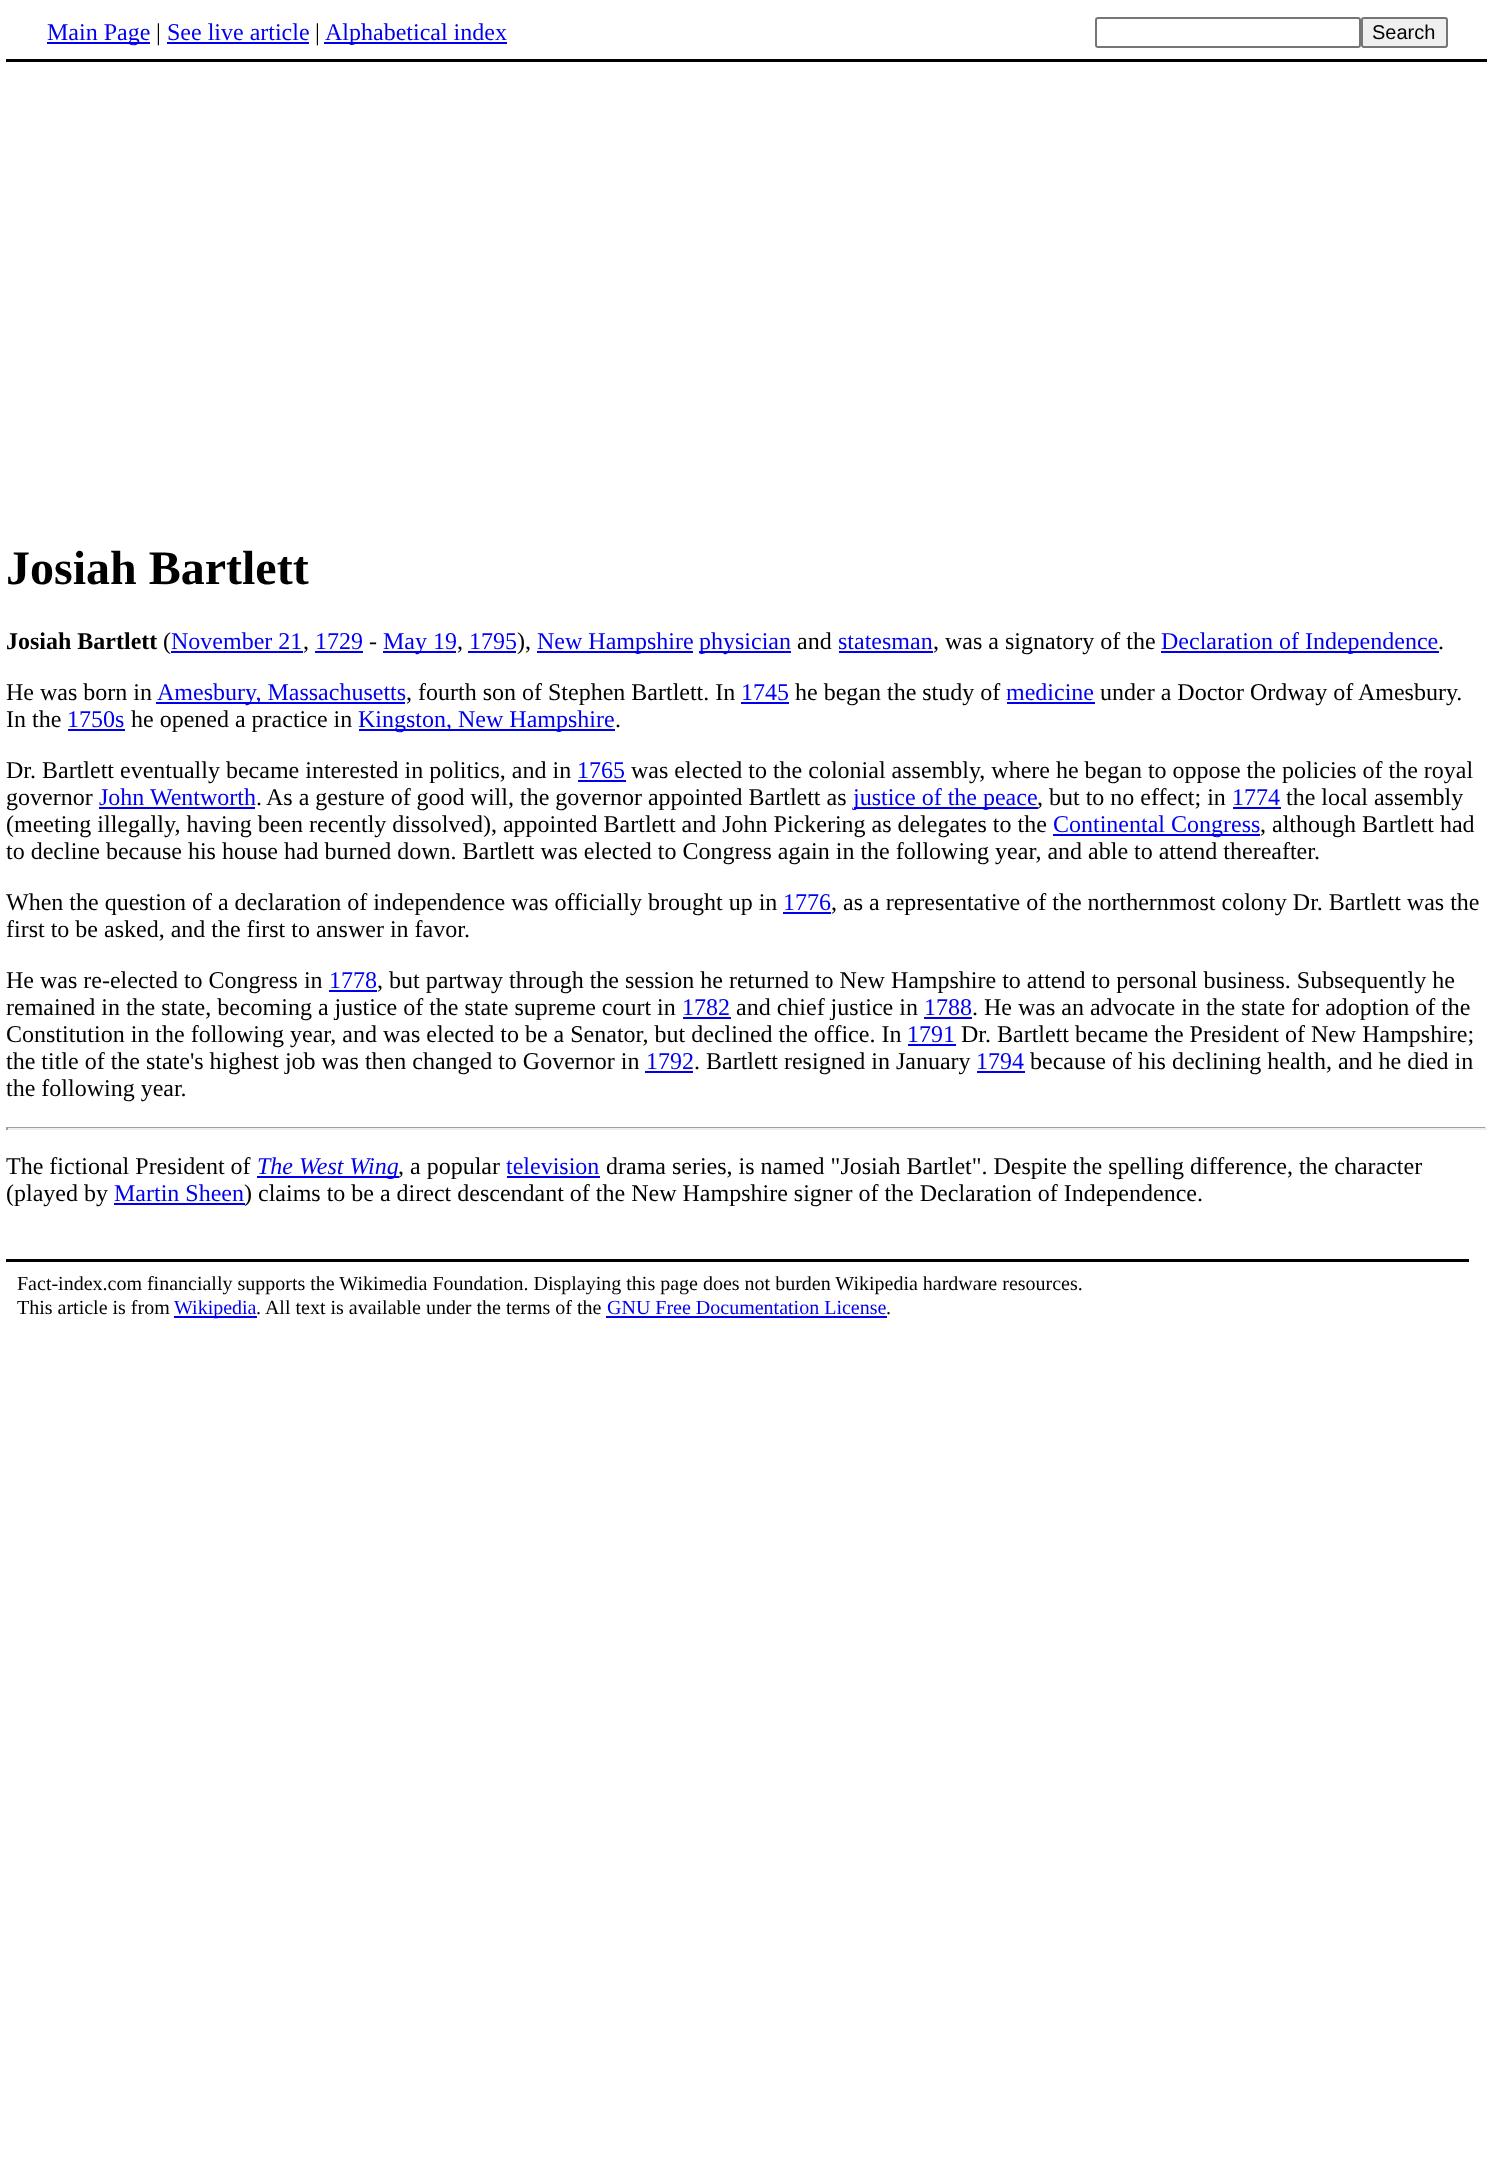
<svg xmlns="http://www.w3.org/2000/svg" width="1492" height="2176">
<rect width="100%" height="100%" fill="#fff"/>
<rect x="6" y="59" width="1481" height="3" fill="#000"/>
<rect x="47" y="42" width="103" height="2" fill="#00e"/>
<text x="47" y="40" style="font-family:Liberation Serif;font-size:24px;fill:#00e">Main Page</text>
<text x="156" y="40" style="font-family:Liberation Serif;font-size:24px;fill:#000">|</text>
<text x="167" y="40" style="font-family:Liberation Serif;font-size:24px;fill:#00e">See live article</text>
<rect x="167" y="42" width="142" height="2" fill="#00e"/>
<text x="315" y="40" style="font-family:Liberation Serif;font-size:24px;fill:#000">|</text>
<rect x="324" y="42" width="183" height="2" fill="#00e"/>
<text x="325" y="40" style="font-family:Liberation Serif;font-size:24px;fill:#00e">Alphabetical index</text>
<rect x="1096" y="18" width="264" height="29" rx="2" fill="none" stroke="#767676" stroke-width="2"/>
<rect x="1362" y="18" width="85" height="29" rx="2" fill="#efefef" stroke="#767676" stroke-width="2"/>
<text x="1372" y="39" style="font-family:Liberation Sans;font-size:20px;fill:#000">Search</text>
<text x="6" y="584" style="font-family:Liberation Serif;font-size:48px;font-weight:bold;fill:#000">Josiah Bartlett</text>
<text x="6" y="649" style="font-family:Liberation Serif;font-size:24px;font-weight:bold;fill:#000">Josiah Bartlett</text>
<text x="163" y="649" style="font-family:Liberation Serif;font-size:24px;fill:#000">(</text>
<text x="171" y="649" style="font-family:Liberation Serif;font-size:24px;fill:#00e">November 21</text>
<rect x="171" y="651" width="132" height="2" fill="#00e"/>
<text x="315" y="649" style="font-family:Liberation Serif;font-size:24px;fill:#00e">1729</text>
<rect x="315" y="651" width="48" height="2" fill="#00e"/>
<text x="369" y="649" style="font-family:Liberation Serif;font-size:24px;fill:#000">-</text>
<rect x="383" y="651" width="73" height="2" fill="#00e"/>
<text x="383" y="649" style="font-family:Liberation Serif;font-size:24px;fill:#00e">May 19</text>
<text x="469" y="649" style="font-family:Liberation Serif;font-size:24px;fill:#00e">1795</text>
<rect x="468" y="651" width="48" height="2" fill="#00e"/>
<text x="517" y="649" style="font-family:Liberation Serif;font-size:24px;fill:#000">),</text>
<rect x="537" y="651" width="156" height="2" fill="#00e"/>
<text x="537" y="649" style="font-family:Liberation Serif;font-size:24px;fill:#00e">New Hampshire</text>
<rect x="699" y="651" width="92" height="2" fill="#00e"/>
<text x="699" y="649" style="font-family:Liberation Serif;font-size:24px;fill:#00e">physician</text>
<text x="797" y="649" style="font-family:Liberation Serif;font-size:24px;fill:#000">and</text>
<text x="838" y="649" style="font-family:Liberation Serif;font-size:24px;fill:#00e">statesman</text>
<rect x="839" y="651" width="94" height="2" fill="#00e"/>
<text x="933" y="649" style="font-family:Liberation Serif;font-size:24px;fill:#000">, was a signatory of the</text>
<rect x="1161" y="651" width="278" height="2" fill="#00e"/>
<text x="1161" y="649" style="font-family:Liberation Serif;font-size:24px;fill:#00e">Declaration of Independence</text>
<text x="303" y="649" style="font-family:Liberation Serif;font-size:24px;fill:#000">,</text>
<text x="457" y="649" style="font-family:Liberation Serif;font-size:24px;fill:#000">,</text>
<text x="1438" y="649" style="font-family:Liberation Serif;font-size:24px;fill:#000">.</text>
<text x="6" y="700" style="font-family:Liberation Serif;font-size:24px;fill:#000">He was born in</text>
<rect x="156" y="702" width="249" height="2" fill="#00e"/>
<text x="157" y="700" style="font-family:Liberation Serif;font-size:24px;fill:#00e">Amesbury, Massachusetts</text>
<text x="406" y="700" style="font-family:Liberation Serif;font-size:24px;fill:#000">, fourth son of Stephen Bartlett. In</text>
<text x="741" y="700" style="font-family:Liberation Serif;font-size:24px;fill:#00e">1745</text>
<rect x="741" y="702" width="48" height="2" fill="#00e"/>
<text x="795" y="700" style="font-family:Liberation Serif;font-size:24px;fill:#000">he began the study of</text>
<text x="1006" y="700" style="font-family:Liberation Serif;font-size:24px;fill:#00e">medicine</text>
<rect x="1007" y="702" width="88" height="2" fill="#00e"/>
<text x="1100" y="700" style="font-family:Liberation Serif;font-size:24px;fill:#000">under a Doctor Ordway of Amesbury.</text>
<text x="6" y="727" style="font-family:Liberation Serif;font-size:24px;fill:#000">In the</text>
<text x="67" y="727" style="font-family:Liberation Serif;font-size:24px;fill:#00e">1750s</text>
<rect x="68" y="729" width="57" height="2" fill="#00e"/>
<text x="131" y="727" style="font-family:Liberation Serif;font-size:24px;fill:#000">he opened a practice in</text>
<rect x="359" y="729" width="256" height="2" fill="#00e"/>
<text x="358" y="727" style="font-family:Liberation Serif;font-size:24px;fill:#00e">Kingston, New Hampshire</text>
<text x="615" y="727" style="font-family:Liberation Serif;font-size:24px;fill:#000">.</text>
<text x="6" y="778" style="font-family:Liberation Serif;font-size:24px;fill:#000">Dr. Bartlett eventually became interested in politics, and in</text>
<text x="577" y="778" style="font-family:Liberation Serif;font-size:24px;fill:#00e">1765</text>
<rect x="578" y="780" width="48" height="2" fill="#00e"/>
<text x="631" y="778" style="font-family:Liberation Serif;font-size:24px;fill:#000">was elected to the colonial assembly, where he began to oppose the policies of the royal</text>
<text x="6" y="805" style="font-family:Liberation Serif;font-size:24px;fill:#000">governor</text>
<text x="99" y="805" style="font-family:Liberation Serif;font-size:24px;fill:#00e">John Wentworth</text>
<rect x="99" y="807" width="156" height="2" fill="#00e"/>
<text x="256" y="805" style="font-family:Liberation Serif;font-size:24px;fill:#000">.</text>
<text x="266" y="805" style="font-family:Liberation Serif;font-size:24px;fill:#000">As a gesture of good will, the governor appointed Bartlett as</text>
<rect x="854" y="807" width="184" height="2" fill="#00e"/>
<text x="853" y="805" style="font-family:Liberation Serif;font-size:24px;fill:#00e">justice of the peace</text>
<text x="1037" y="805" style="font-family:Liberation Serif;font-size:24px;fill:#000">, but to no effect; in</text>
<text x="1232" y="805" style="font-family:Liberation Serif;font-size:24px;fill:#00e">1774</text>
<rect x="1233" y="807" width="48" height="2" fill="#00e"/>
<text x="1286" y="805" style="font-family:Liberation Serif;font-size:24px;fill:#000">the local assembly</text>
<text x="6" y="832" style="font-family:Liberation Serif;font-size:24px;fill:#000">(meeting illegally, having been recently dissolved), appointed Bartlett and John Pickering as delegates to the</text>
<rect x="1053" y="834" width="207" height="2" fill="#00e"/>
<text x="1053" y="832" style="font-family:Liberation Serif;font-size:24px;fill:#00e">Continental Congress</text>
<text x="1260" y="832" style="font-family:Liberation Serif;font-size:24px;fill:#000">, although Bartlett had</text>
<text x="6" y="859" style="font-family:Liberation Serif;font-size:24px;fill:#000">to decline because his house had burned down. Bartlett was elected to Congress again in the following year, and able to attend thereafter.</text>
<text x="6" y="910" style="font-family:Liberation Serif;font-size:24px;fill:#000">When the question of a declaration of independence was officially brought up in</text>
<text x="783" y="910" style="font-family:Liberation Serif;font-size:24px;fill:#00e">1776</text>
<rect x="783" y="912" width="48" height="2" fill="#00e"/>
<text x="831" y="910" style="font-family:Liberation Serif;font-size:24px;fill:#000">, as a representative of the northernmost colony Dr. Bartlett was the</text>
<text x="6" y="937" style="font-family:Liberation Serif;font-size:24px;fill:#000">first to be asked, and the first to answer in favor.</text>
<text x="6" y="988" style="font-family:Liberation Serif;font-size:24px;fill:#000">He was re-elected to Congress in</text>
<text x="329" y="988" style="font-family:Liberation Serif;font-size:24px;fill:#00e">1778</text>
<rect x="329" y="990" width="48" height="2" fill="#00e"/>
<text x="377" y="988" style="font-family:Liberation Serif;font-size:24px;fill:#000">, but partway through the session he returned to New Hampshire to attend to personal business. Subsequently he</text>
<text x="6" y="1015" style="font-family:Liberation Serif;font-size:24px;fill:#000">remained in the state, becoming a justice of the state supreme court in</text>
<text x="682" y="1015" style="font-family:Liberation Serif;font-size:24px;fill:#00e">1782</text>
<rect x="683" y="1017" width="48" height="2" fill="#00e"/>
<text x="736" y="1015" style="font-family:Liberation Serif;font-size:24px;fill:#000">and chief justice in</text>
<text x="924" y="1015" style="font-family:Liberation Serif;font-size:24px;fill:#00e">1788</text>
<rect x="924" y="1017" width="48" height="2" fill="#00e"/>
<text x="972" y="1015" style="font-family:Liberation Serif;font-size:24px;fill:#000">. He was an advocate in the state for adoption of the</text>
<text x="6" y="1042" style="font-family:Liberation Serif;font-size:24px;fill:#000">Constitution in the following year, and was elected to be a Senator, but declined the office. In</text>
<text x="907" y="1042" style="font-family:Liberation Serif;font-size:24px;fill:#00e">1791</text>
<rect x="908" y="1044" width="48" height="2" fill="#00e"/>
<text x="961" y="1042" style="font-family:Liberation Serif;font-size:24px;fill:#000">Dr. Bartlett became the President of New Hampshire;</text>
<text x="6" y="1069" style="font-family:Liberation Serif;font-size:24px;fill:#000">the title of the state's highest job was then changed to Governor in</text>
<text x="646" y="1069" style="font-family:Liberation Serif;font-size:24px;fill:#00e">1792</text>
<rect x="645" y="1071" width="48" height="2" fill="#00e"/>
<text x="694" y="1069" style="font-family:Liberation Serif;font-size:24px;fill:#000">. Bartlett resigned in January</text>
<text x="976" y="1069" style="font-family:Liberation Serif;font-size:24px;fill:#00e">1794</text>
<rect x="977" y="1071" width="48" height="2" fill="#00e"/>
<text x="1030" y="1069" style="font-family:Liberation Serif;font-size:24px;fill:#000">because of his declining health, and he died in</text>
<text x="6" y="1096" style="font-family:Liberation Serif;font-size:24px;fill:#000">the following year.</text>
<rect x="6" y="1127" width="1481" height="1" fill="#9f9f9f"/>
<rect x="1485" y="1127" width="2" height="3" fill="#eee"/>
<rect x="6" y="1128" width="1481" height="2" fill="#eee"/>
<rect x="6" y="1127" width="2" height="3" fill="#9f9f9f"/>
<text x="6" y="1174" style="font-family:Liberation Serif;font-size:24px;fill:#000">The fictional President of</text>
<rect x="257" y="1176" width="142" height="2" fill="#00e"/>
<text x="257" y="1174" style="font-family:Liberation Serif;font-size:24px;font-style:italic;fill:#00e">The West Wing</text>
<text x="398" y="1174" style="font-family:Liberation Serif;font-size:24px;fill:#000">, a popular</text>
<text x="506" y="1174" style="font-family:Liberation Serif;font-size:24px;fill:#00e">television</text>
<rect x="507" y="1176" width="93" height="2" fill="#00e"/>
<text x="606" y="1174" style="font-family:Liberation Serif;font-size:24px;fill:#000">drama series, is named "Josiah Bartlet". Despite the spelling difference, the character</text>
<text x="6" y="1201" style="font-family:Liberation Serif;font-size:24px;fill:#000">(played by</text>
<text x="114" y="1201" style="font-family:Liberation Serif;font-size:24px;fill:#00e">Martin Sheen</text>
<rect x="114" y="1203" width="131" height="2" fill="#00e"/>
<text x="244" y="1201" style="font-family:Liberation Serif;font-size:24px;fill:#000">) claims to be a direct descendant of the New Hampshire signer of the Declaration of Independence.</text>
<rect x="6" y="1259" width="1463" height="3" fill="#000"/>
<text x="17" y="1290" style="font-family:Liberation Serif;font-size:20px;fill:#000">Fact-index.com financially supports the Wikimedia Foundation. Displaying this page does not burden Wikipedia hardware resources.</text>
<text x="17" y="1314" style="font-family:Liberation Serif;font-size:20px;fill:#000">This article is from</text>
<rect x="174" y="1316" width="83" height="2" fill="#00e"/>
<text x="174" y="1314" style="font-family:Liberation Serif;font-size:20px;fill:#00e">Wikipedia</text>
<text x="256" y="1314" style="font-family:Liberation Serif;font-size:20px;fill:#000">. All text is available under the terms of the</text>
<text x="607" y="1314" style="font-family:Liberation Serif;font-size:20px;fill:#00e">GNU Free Documentation License</text>
<text x="886" y="1314" style="font-family:Liberation Serif;font-size:20px;fill:#000">.</text>
<rect x="606" y="1316" width="281" height="2" fill="#00e"/>
</svg>
